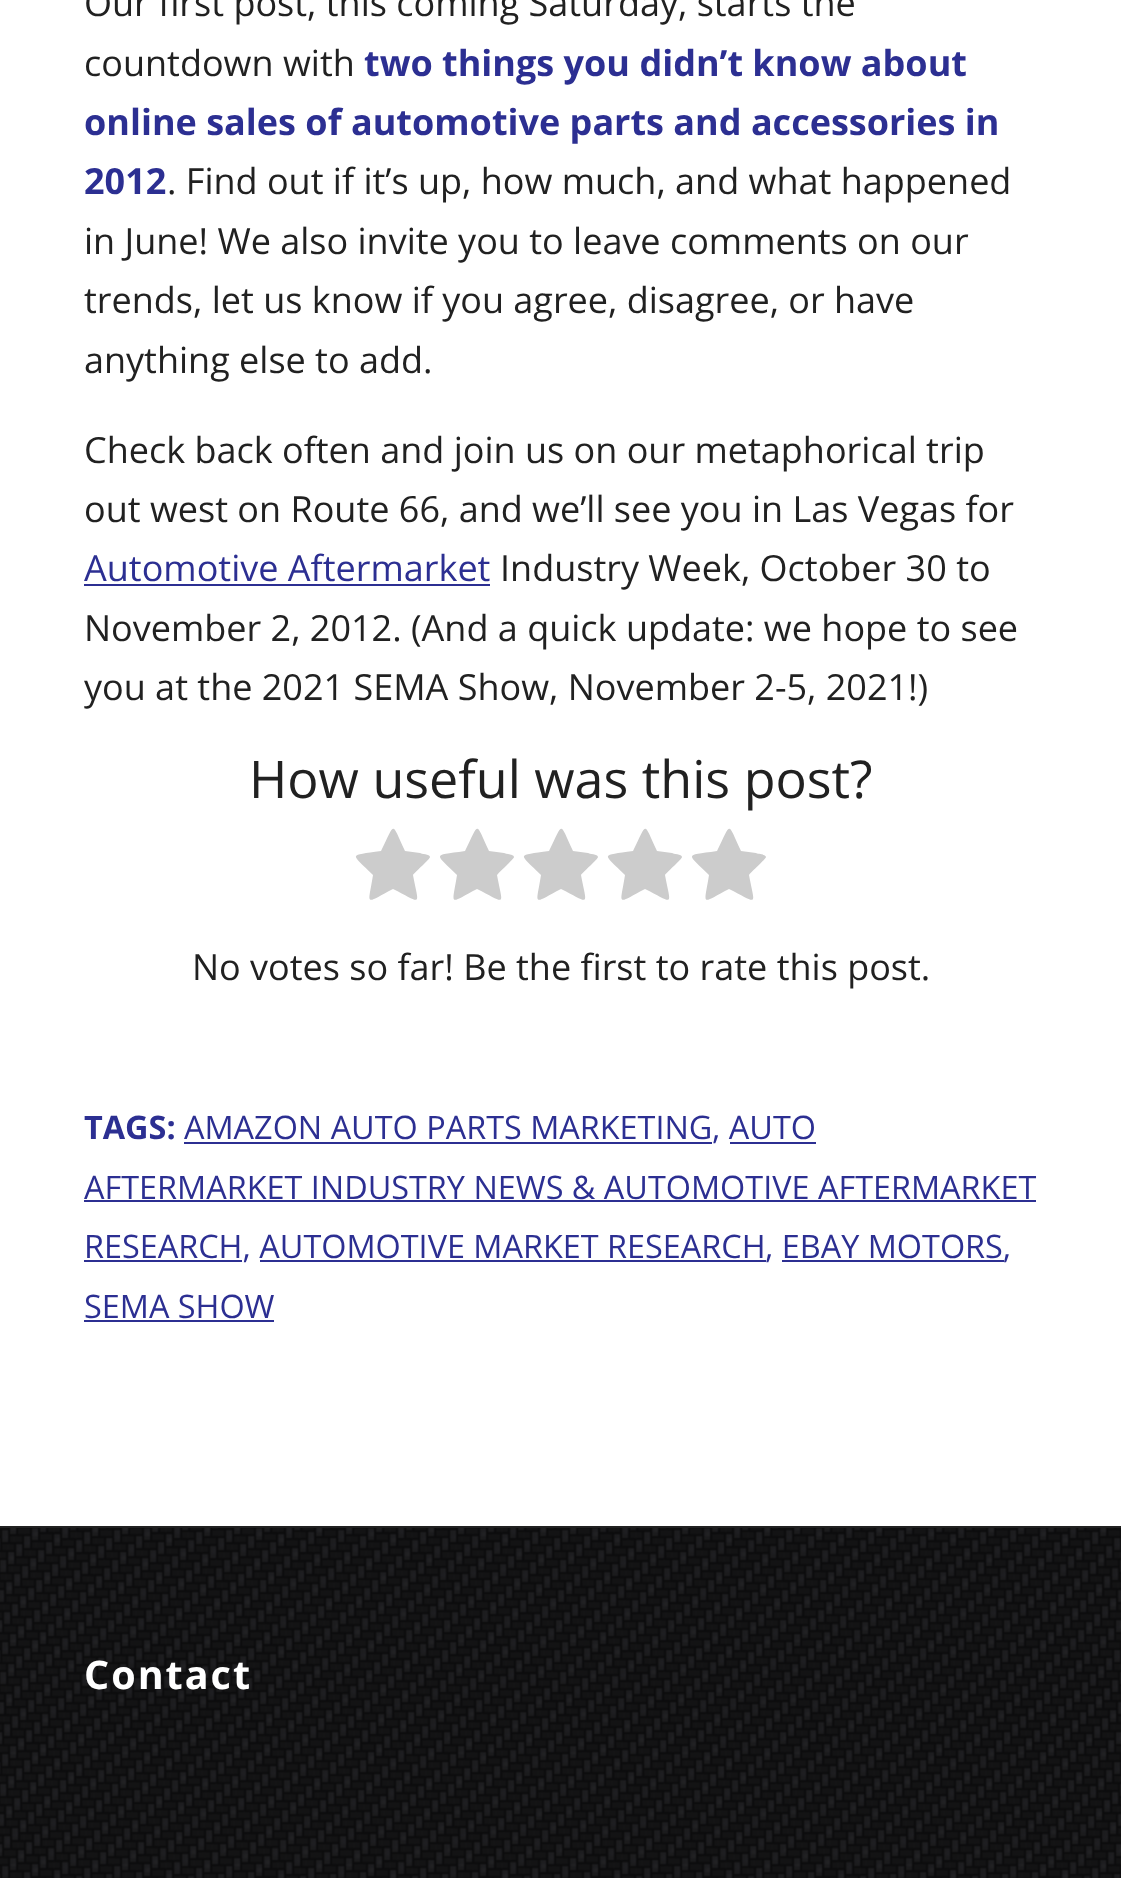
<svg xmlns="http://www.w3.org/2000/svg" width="1121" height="1878">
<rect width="100%" height="100%" fill="#fff"/>
<text x="84" y="16" style="font-family:Open Sans;font-size:36px;fill:#212121">Our first post, this coming Saturday, starts the</text>
<text x="84" y="76" style="font-family:Open Sans;font-size:36px;fill:#212121">countdown with</text>
<text x="364" y="76" style="font-family:Open Sans;font-size:36px;font-weight:bold;fill:#2c2f92">two things you didn’t know about</text>
<text x="84" y="135" style="font-family:Open Sans;font-size:36px;font-weight:bold;fill:#2c2f92">online sales of automotive parts and accessories in</text>
<text x="84" y="194" style="font-family:Open Sans;font-size:36px;font-weight:bold;fill:#2c2f92">2012</text>
<text x="167" y="194" style="font-family:Open Sans;font-size:36px;fill:#212121">. Find out if it’s up, how much, and what happened</text>
<text x="84" y="254" style="font-family:Open Sans;font-size:36px;fill:#212121">in June! We also invite you to leave comments on our</text>
<text x="84" y="313" style="font-family:Open Sans;font-size:36px;fill:#212121">trends, let us know if you agree, disagree, or have</text>
<text x="84" y="373" style="font-family:Open Sans;font-size:36px;fill:#212121">anything else to add.</text>
<text x="84" y="463" style="font-family:Open Sans;font-size:36px;fill:#212121">Check back often and join us on our metaphorical trip</text>
<text x="84" y="522" style="font-family:Open Sans;font-size:36px;fill:#212121">out west on Route 66, and we’ll see you in Las Vegas for</text>
<text x="84" y="581" style="font-family:Open Sans;font-size:36px;fill:#2c2f92">Automotive Aftermarket</text>
<rect x="84" y="584" width="406" height="2" fill="#2c2f92"/>
<text x="500" y="581" style="font-family:Open Sans;font-size:36px;fill:#212121">Industry Week, October 30 to</text>
<text x="84" y="641" style="font-family:Open Sans;font-size:36px;fill:#212121">November 2, 2012. (And a quick update: we hope to see</text>
<text x="84" y="700" style="font-family:Open Sans;font-size:36px;fill:#212121">you at the 2021 SEMA Show, November 2-5, 2021!)</text>
<text x="249" y="798" style="font-family:Open Sans;font-size:52px;fill:#212121">How useful was this post?</text>
<path d="M430 857c0 2-15 15-17 18c6 32 10 29-20 14c-29 15-25 18-20-14c-23-23-25-19 8-24c15-30 10-29 24 0l15 2c1 1 10 1 10 4z" fill="#ccc"/>
<path d="M514 857c0 2-15 15-17 18c6 32 10 29-20 14c-29 15-25 18-20-14c-23-23-25-19 8-24c15-30 10-29 24 0l15 2c1 1 10 1 10 4z" fill="#ccc"/>
<path d="M598 857c0 2-15 15-17 18c6 32 10 29-20 14c-29 15-25 18-20-14c-23-23-25-19 8-24c15-30 10-29 24 0l15 2c1 1 10 1 10 4z" fill="#ccc"/>
<path d="M682 857c0 2-15 15-17 18c6 32 10 29-20 14c-29 15-25 18-20-14c-23-23-25-19 8-24c15-30 10-29 24 0l15 2c1 1 10 1 10 4z" fill="#ccc"/>
<path d="M766 857c0 2-15 15-17 18c6 32 10 29-20 14c-29 15-25 18-20-14c-23-23-25-19 8-24c15-30 10-29 24 0l15 2c1 1 10 1 10 4z" fill="#ccc"/>
<text x="192" y="980" style="font-family:Open Sans;font-size:36px;fill:#212121">No votes so far! Be the first to rate this post.</text>
<text x="84" y="1139" style="font-family:Open Sans;font-size:32.4px;font-weight:bold;fill:#2c2f92">TAGS:</text>
<text x="184" y="1139" style="font-family:Open Sans;font-size:32.4px;fill:#2c2f92">AMAZON AUTO PARTS MARKETING</text>
<text x="712" y="1139" style="font-family:Open Sans;font-size:32.4px;fill:#2c2f92">, AUTO</text>
<rect x="184" y="1142" width="528" height="2" fill="#2c2f92"/>
<rect x="730" y="1142" width="86" height="2" fill="#2c2f92"/>
<text x="84" y="1199" style="font-family:Open Sans;font-size:32.4px;fill:#2c2f92">AFTERMARKET INDUSTRY NEWS &amp; AUTOMOTIVE AFTERMARKET</text>
<rect x="84" y="1200" width="952" height="2" fill="#2c2f92"/>
<rect x="84" y="1260" width="158" height="2" fill="#2c2f92"/>
<text x="84" y="1258" style="font-family:Open Sans;font-size:32.4px;fill:#2c2f92">RESEARCH, AUTOMOTIVE MARKET RESEARCH</text>
<rect x="260" y="1260" width="506" height="2" fill="#2c2f92"/>
<text x="765" y="1258" style="font-family:Open Sans;font-size:32.4px;fill:#2c2f92">, EBAY MOTORS,</text>
<rect x="782" y="1260" width="222" height="2" fill="#2c2f92"/>
<text x="84" y="1318" style="font-family:Open Sans;font-size:32.4px;fill:#2c2f92">SEMA SHOW</text>
<rect x="84" y="1320" width="190" height="2" fill="#2c2f92"/>
<image x="0" y="1528" width="1121" height="350" href="media/1.png"/>
<rect y="1526" width="1121" height="2" fill="#212121"/>
<text x="84" y="1689" style="font-family:Open Sans;font-size:39.5px;font-weight:bold;letter-spacing:2px;fill:#fff">Contact</text>
</svg>
